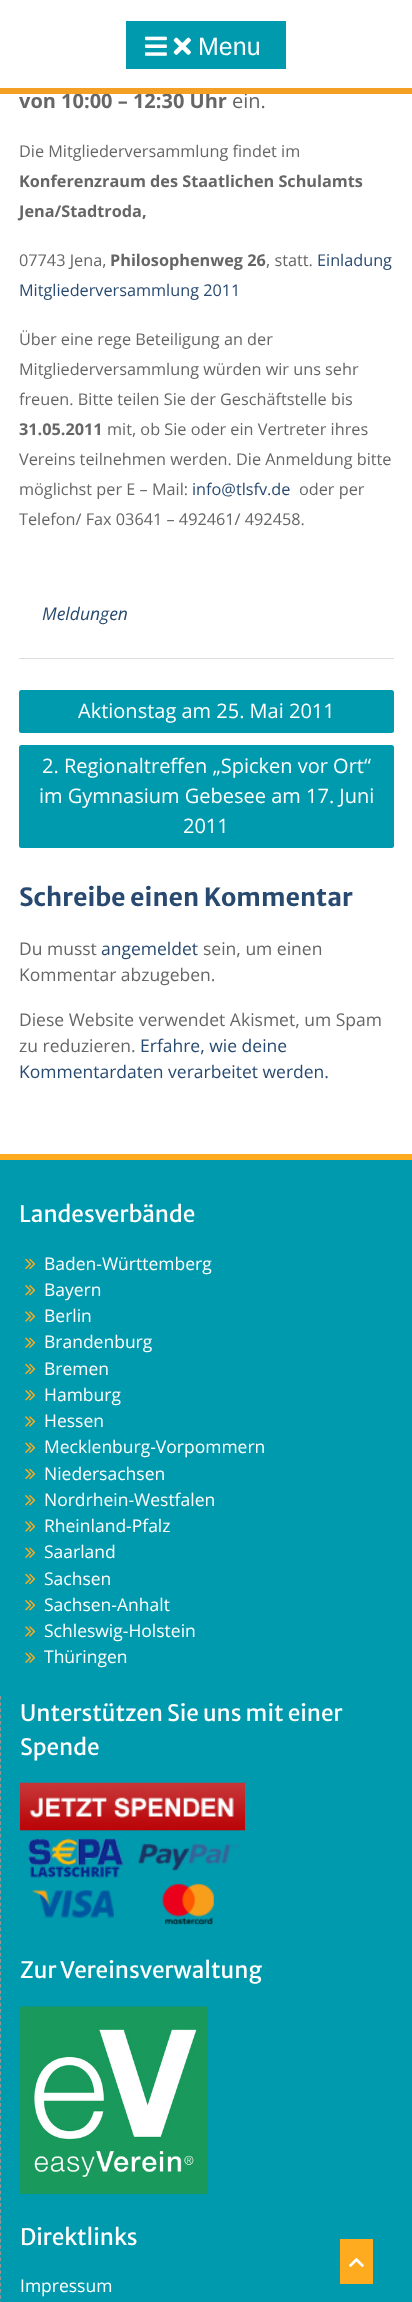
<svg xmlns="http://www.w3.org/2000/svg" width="412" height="2302">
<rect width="100%" height="100%" fill="#fff"/>
<text x="19" y="108" style="font-family:Open Sans;font-size:20px;font-weight:bold;fill:#666">von 10:00 – 12:30 Uhr</text>
<text x="232" y="108" style="font-family:Open Sans;font-size:20px;fill:#666">ein.</text>
<rect y="88" width="412" height="6" fill="#f4a024"/>
<rect x="126" y="21" width="160" height="48" fill="#009aaf"/>
<image x="145" y="36" width="22" height="20" href="media/1.png"/>
<image x="173" y="37" width="18" height="18" href="media/2.png"/>
<text x="198" y="55" style="font-family:Liberation Sans;font-size:25px;fill:#fff">Menu</text>
<rect x="19" y="658" width="375" height="1" fill="#ddd"/>
<text x="19" y="157" style="font-family:Open Sans;font-size:16.25px;fill:#666">Die Mitgliederversammlung findet im</text>
<text x="19" y="187" style="font-family:Open Sans;font-size:16.25px;font-weight:bold;fill:#666">Konferenzraum des Staatlichen Schulamts</text>
<text x="19" y="217" style="font-family:Open Sans;font-size:16.25px;font-weight:bold;fill:#666">Jena/Stadtroda,</text>
<text x="19" y="266" style="font-family:Open Sans;font-size:16.25px;fill:#666">07743 Jena,</text>
<text x="110" y="266" style="font-family:Open Sans;font-size:16.25px;font-weight:bold;fill:#666">Philosophenweg 26</text>
<text x="266" y="266" style="font-family:Open Sans;font-size:16.25px;fill:#666">, statt.</text>
<text x="317" y="266" style="font-family:Open Sans;font-size:16.25px;fill:#294a70">Einladung</text>
<text x="19" y="296" style="font-family:Open Sans;font-size:16.25px;fill:#294a70">Mitgliederversammlung 2011</text>
<text x="19" y="345" style="font-family:Open Sans;font-size:16.25px;fill:#666">Über eine rege Beteiligung an der</text>
<text x="19" y="375" style="font-family:Open Sans;font-size:16.25px;fill:#666">Mitgliederversammlung würden wir uns sehr</text>
<text x="19" y="405" style="font-family:Open Sans;font-size:16.25px;fill:#666">freuen. Bitte teilen Sie der Geschäftstelle bis</text>
<text x="19" y="435" style="font-family:Open Sans;font-size:16.25px;font-weight:bold;fill:#666">31.05.2011</text>
<text x="107" y="435" style="font-family:Open Sans;font-size:16.25px;fill:#666">mit, ob Sie oder ein Vertreter ihres</text>
<text x="19" y="465" style="font-family:Open Sans;font-size:16.25px;fill:#666">Vereins teilnehmen werden. Die Anmeldung bitte</text>
<text x="19" y="495" style="font-family:Open Sans;font-size:16.25px;fill:#666">möglichst per E – Mail:</text>
<text x="192" y="495" style="font-family:Open Sans;font-size:16.25px;fill:#294a70">info@tlsfv.de</text>
<text x="299" y="495" style="font-family:Open Sans;font-size:16.25px;fill:#666">oder per</text>
<text x="19" y="525" style="font-family:Open Sans;font-size:16.25px;fill:#666">Telefon/ Fax 03641 – 492461/ 492458.</text>
<text x="42" y="620" style="font-family:Open Sans;font-size:17.5px;font-style:italic;fill:#294a70">Meldungen</text>
<rect x="19" y="690" width="375" height="43" rx="2.5" fill="#009aaf"/>
<text x="78" y="718" style="font-family:Open Sans;font-size:20px;fill:#fff">Aktionstag am 25. Mai 2011</text>
<rect x="19" y="745" width="375" height="103" rx="2.5" fill="#009aaf"/>
<text x="42" y="773" style="font-family:Open Sans;font-size:20px;fill:#fff">2. Regionaltreffen „Spicken vor Ort“</text>
<text x="39" y="803" style="font-family:Open Sans;font-size:20px;fill:#fff">im Gymnasium Gebesee am 17. Juni</text>
<text x="183" y="833" style="font-family:Open Sans;font-size:20px;fill:#fff">2011</text>
<text x="19" y="906" style="font-family:Merriweather Sans;font-size:25px;font-weight:bold;fill:#294a70">Schreibe einen Kommentar</text>
<text x="19" y="955" style="font-family:Open Sans;font-size:17.5px;fill:#666">Du musst</text>
<text x="101" y="955" style="font-family:Open Sans;font-size:17.5px;fill:#294a70">angemeldet</text>
<text x="203" y="955" style="font-family:Open Sans;font-size:17.5px;fill:#666">sein, um einen</text>
<text x="19" y="981" style="font-family:Open Sans;font-size:17.5px;fill:#666">Kommentar abzugeben.</text>
<text x="19" y="1026" style="font-family:Open Sans;font-size:17.5px;fill:#666">Diese Website verwendet Akismet, um Spam</text>
<text x="19" y="1052" style="font-family:Open Sans;font-size:17.5px;fill:#666">zu reduzieren.</text>
<text x="140" y="1052" style="font-family:Open Sans;font-size:17.5px;fill:#294a70">Erfahre, wie deine</text>
<text x="19" y="1078" style="font-family:Open Sans;font-size:17.5px;fill:#294a70">Kommentardaten verarbeitet werden.</text>
<rect y="1160" width="412" height="1142" fill="#009aaf"/>
<rect y="1154" width="412" height="6" fill="#ffab1f"/>
<text x="19" y="1222" style="font-family:Merriweather Sans;font-size:22.5px;fill:#fff">Landesverbände</text>
<image x="25" y="1258" width="11" height="12" href="media/3.png"/>
<text x="44" y="1270" style="font-family:Open Sans;font-size:17.5px;fill:#fff">Baden-Württemberg</text>
<image x="25" y="1285" width="11" height="11" href="media/4.png"/>
<text x="44" y="1296" style="font-family:Open Sans;font-size:17.5px;fill:#fff">Bayern</text>
<image x="25" y="1311" width="11" height="11" href="media/5.png"/>
<text x="44" y="1322" style="font-family:Open Sans;font-size:17.5px;fill:#fff">Berlin</text>
<image x="25" y="1337" width="11" height="11" href="media/6.png"/>
<text x="44" y="1348" style="font-family:Open Sans;font-size:17.5px;fill:#fff">Brandenburg</text>
<image x="25" y="1363" width="11" height="12" href="media/3.png"/>
<text x="44" y="1375" style="font-family:Open Sans;font-size:17.5px;fill:#fff">Bremen</text>
<image x="25" y="1390" width="11" height="11" href="media/4.png"/>
<text x="44" y="1401" style="font-family:Open Sans;font-size:17.5px;fill:#fff">Hamburg</text>
<image x="25" y="1416" width="11" height="11" href="media/5.png"/>
<text x="44" y="1427" style="font-family:Open Sans;font-size:17.5px;fill:#fff">Hessen</text>
<image x="25" y="1442" width="11" height="11" href="media/6.png"/>
<text x="44" y="1453" style="font-family:Open Sans;font-size:17.5px;fill:#fff">Mecklenburg-Vorpommern</text>
<image x="25" y="1468" width="11" height="12" href="media/3.png"/>
<text x="44" y="1480" style="font-family:Open Sans;font-size:17.5px;fill:#fff">Niedersachsen</text>
<image x="25" y="1495" width="11" height="11" href="media/4.png"/>
<text x="44" y="1506" style="font-family:Open Sans;font-size:17.5px;fill:#fff">Nordrhein-Westfalen</text>
<image x="25" y="1521" width="11" height="11" href="media/5.png"/>
<text x="44" y="1532" style="font-family:Open Sans;font-size:17.5px;fill:#fff">Rheinland-Pfalz</text>
<image x="25" y="1547" width="11" height="11" href="media/6.png"/>
<text x="44" y="1558" style="font-family:Open Sans;font-size:17.5px;fill:#fff">Saarland</text>
<image x="25" y="1573" width="11" height="12" href="media/3.png"/>
<text x="44" y="1585" style="font-family:Open Sans;font-size:17.5px;fill:#fff">Sachsen</text>
<image x="25" y="1600" width="11" height="11" href="media/4.png"/>
<text x="44" y="1611" style="font-family:Open Sans;font-size:17.5px;fill:#fff">Sachsen-Anhalt</text>
<image x="25" y="1626" width="11" height="11" href="media/5.png"/>
<text x="44" y="1637" style="font-family:Open Sans;font-size:17.5px;fill:#fff">Schleswig-Holstein</text>
<image x="25" y="1652" width="11" height="11" href="media/6.png"/>
<text x="44" y="1663" style="font-family:Open Sans;font-size:17.5px;fill:#fff">Thüringen</text>
<path d="M.5 1696v524" fill="none" stroke="#939393" stroke-width="1.2" stroke-dasharray="3.75 2.51"/>
<text x="20" y="1721" style="font-family:Merriweather Sans;font-size:22.5px;fill:#fff">Unterstützen Sie uns mit einer</text>
<text x="20" y="1755" style="font-family:Merriweather Sans;font-size:22.5px;fill:#fff">Spende</text>
<image x="20" y="1782" width="225" height="143" href="media/7.png"/>
<text x="20" y="1978" style="font-family:Merriweather Sans;font-size:22.5px;fill:#fff">Zur Vereinsverwaltung</text>
<image x="20" y="2006" width="188" height="188" href="media/8.png"/>
<path d="M.5 2220v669" fill="none" stroke="#939393" stroke-width="1.2" stroke-dasharray="3.75 2.52"/>
<text x="20" y="2245" style="font-family:Merriweather Sans;font-size:22.5px;fill:#fff">Direktlinks</text>
<text x="20" y="2292" style="font-family:Open Sans;font-size:17.5px;fill:#fff">Impressum</text>
<rect x="340" y="2239" width="33" height="45" fill="#ffab1f"/>
<image x="349" y="2258" width="15" height="9" href="media/9.png"/>
</svg>
